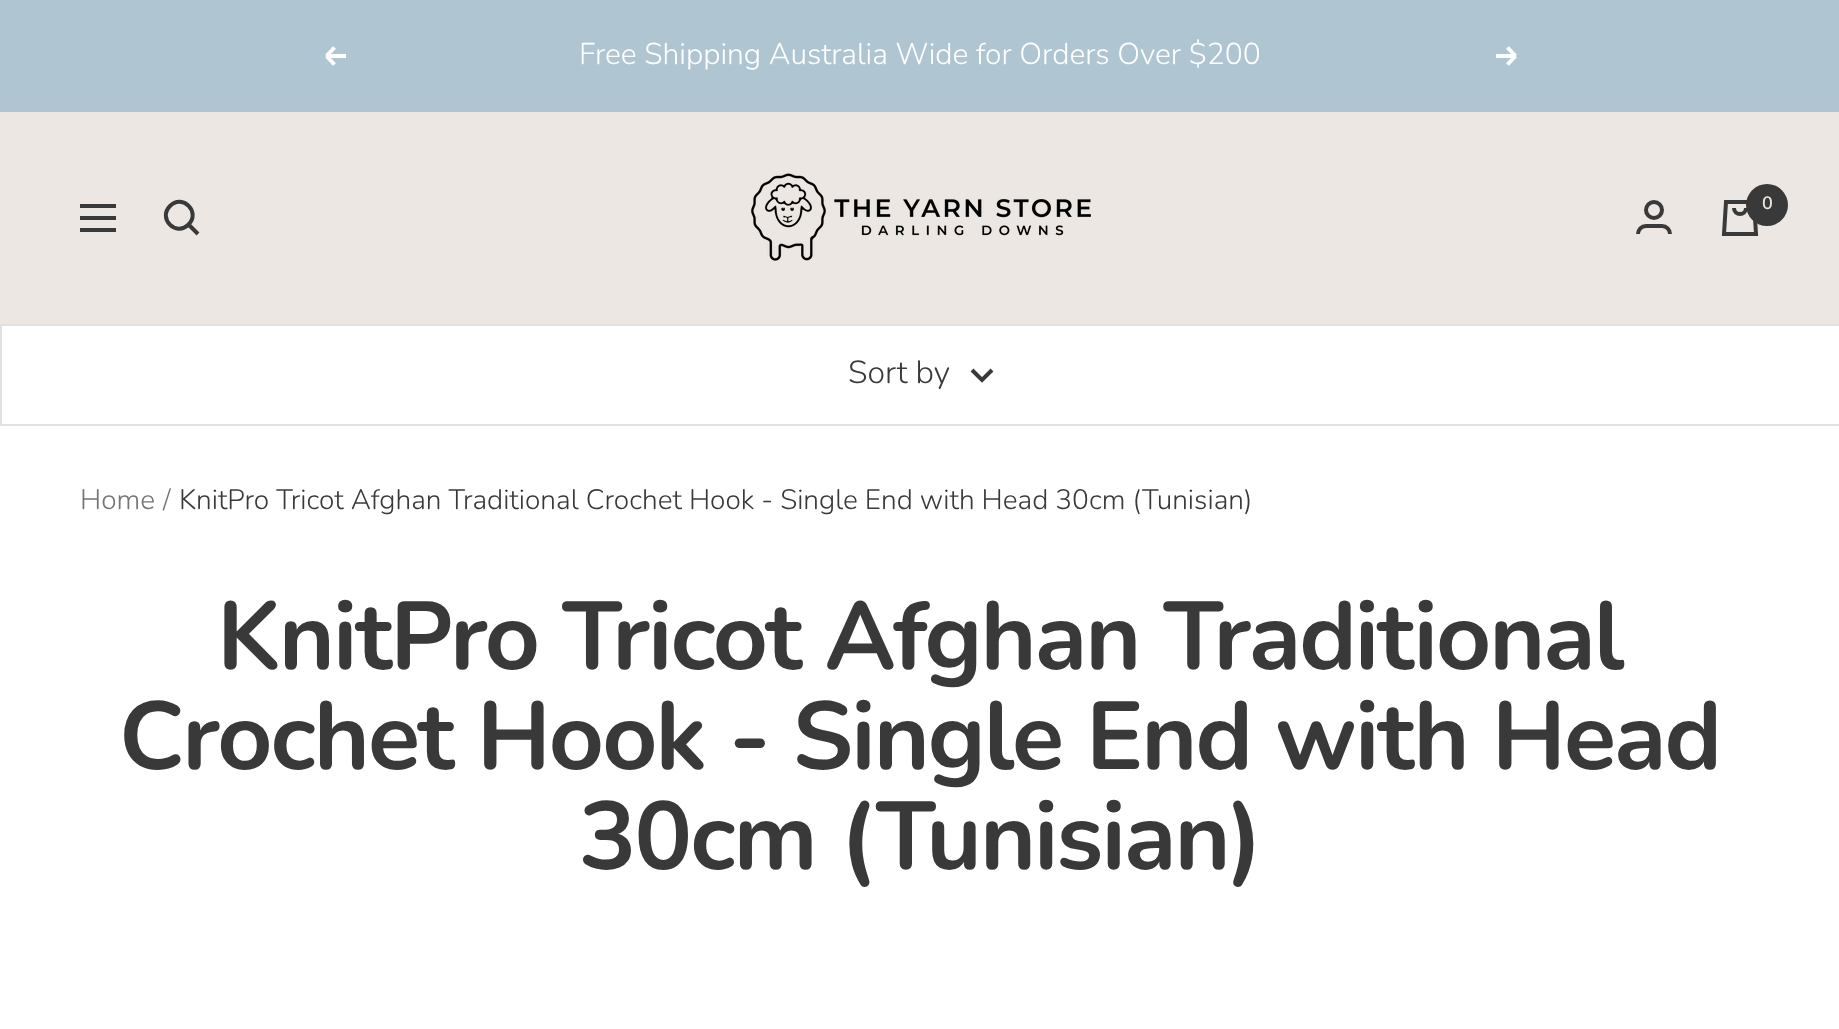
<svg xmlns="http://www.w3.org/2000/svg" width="1839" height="1029">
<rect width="100%" height="100%" fill="#fff"/>
<rect width="1839" height="112" fill="#afc6d2"/>
<path d="M346 56h-19.5m0 0l8 8.5m-8-8.5l8-8.5" fill="none" stroke="#fff" stroke-width="4"/>
<text x="579" y="64" style="font-family:Nunito;font-size:30px;font-weight:300;fill:#fff">Free Shipping Australia Wide for Orders Over $200</text>
<path d="M1496 56h19.5m0 0l-8 8.5m8-8.5l-8-8.5" fill="none" stroke="#fff" stroke-width="4"/>
<rect y="112" width="1839" height="212" fill="#ece7e2"/>
<path d="M80 206h36m-36 24h36zm0-12h36z" fill="none" stroke="#393939" stroke-width="4"/>
<path d="M188.5 224.5c12.5-12.5-6-31-18.5-18.5c-12.5 12.5 6 31 18.5 18.5zm0 0l9.5 9.5" fill="none" stroke="#393939" stroke-width="4"/>
<image x="751" y="173" width="340" height="88" href="media/1.png"/>
<circle cx="1654" cy="210" r="8" fill="none" stroke="#393939" stroke-width="4"/>
<path d="M1638 234c0-4.5 3.5-8 8-8h16c4.5 0 8 3.5 8 8" fill="none" stroke="#393939" stroke-width="4"/>
<path d="M1726 202h28l2 32h-32zm8 6c0 8 12 8 12 0" fill="none" stroke="#393939" stroke-width="4"/>
<circle cx="1767" cy="205" r="21" fill="#393939"/>
<text x="1762" y="209" style="font-family:Nunito;font-size:18px;font-weight:600;fill:#ece7e2">0</text>
<rect y="324" width="1839" height="2" fill="#e1e1e1"/>
<rect y="424" width="1839" height="2" fill="#e1e1e1"/>
<rect y="324" width="2" height="102" fill="#e1e1e1"/>
<text x="848" y="383" style="font-family:Nunito;font-size:32px;font-weight:300;fill:#393939">Sort by</text>
<path d="M972 370l10 10l10-10" fill="none" stroke="#393939" stroke-width="4"/>
<text x="80" y="509" style="font-family:Nunito;font-size:28px;font-weight:300;fill:#747474">Home</text>
<text x="163" y="509" style="font-family:Nunito;font-size:28px;font-weight:300;fill:#747474">/</text>
<text x="179" y="509" style="font-family:Nunito;font-size:28px;font-weight:300;fill:#393939">KnitPro Tricot Afghan Traditional Crochet Hook - Single End with Head 30cm (Tunisian)</text>
<text x="217" y="669" style="font-family:Nunito;font-size:96px;font-weight:bold;letter-spacing:-2px;fill:#393939">KnitPro Tricot Afghan Traditional</text>
<text x="119" y="769" style="font-family:Nunito;font-size:96px;font-weight:bold;letter-spacing:-2px;fill:#393939">Crochet Hook - Single End with Head</text>
<text x="579" y="869" style="font-family:Nunito;font-size:96px;font-weight:bold;letter-spacing:-2px;fill:#393939">30cm (Tunisian)</text>
</svg>
